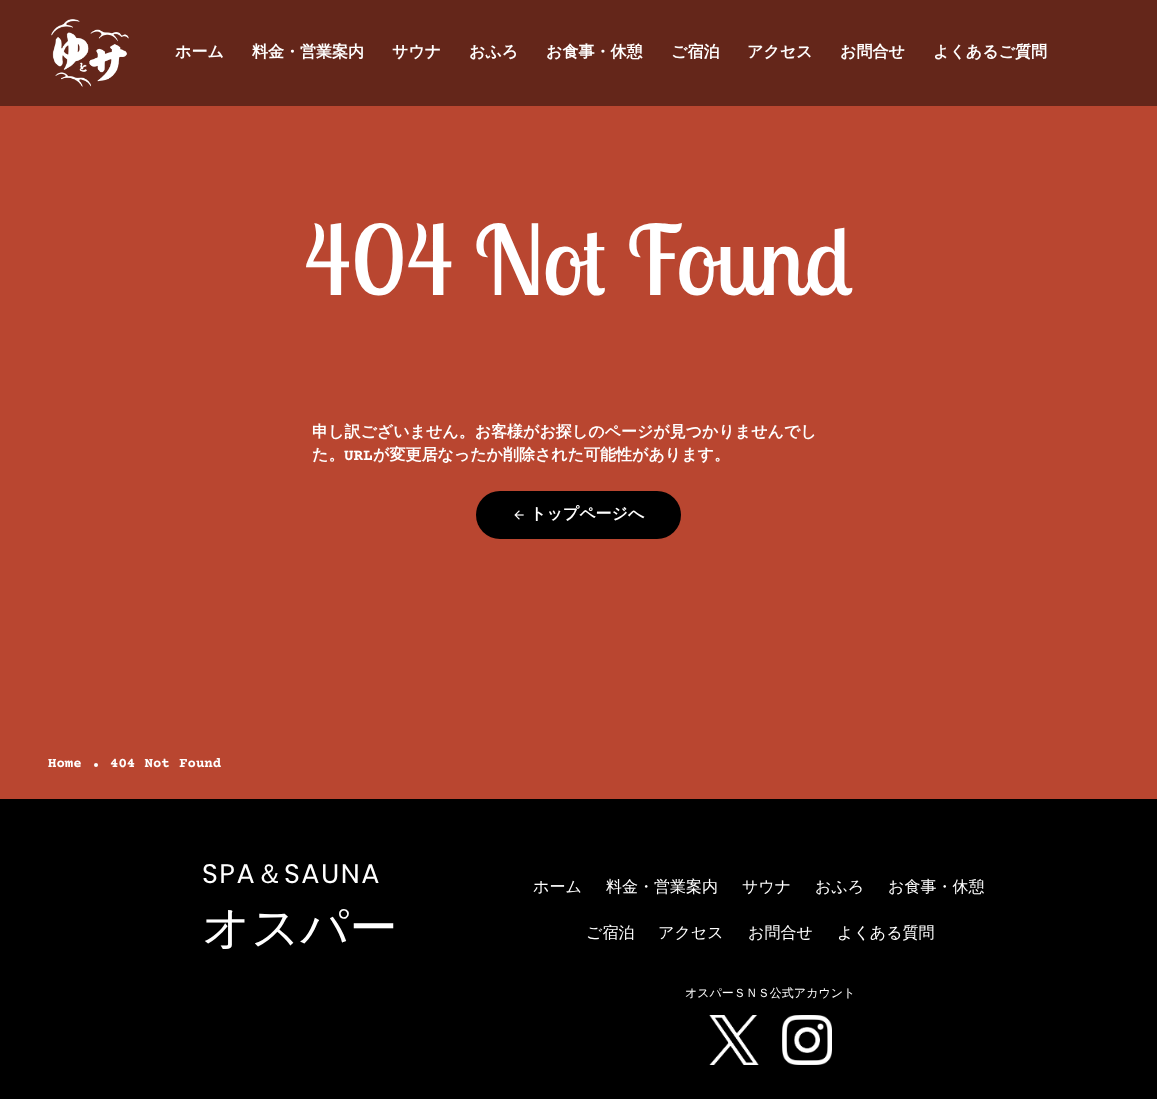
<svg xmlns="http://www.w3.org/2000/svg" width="1157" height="1099">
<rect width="100%" height="100%" fill="#b94630"/>
<rect width="1157" height="106" fill="#64261a"/>
<image x="51" y="19" width="78" height="68" href="media/1.png"/>
<text x="175" y="57" style="font-family:WenQuanYi Zen Hei;font-size:16px;font-weight:bold;fill:#fff">ホーム</text>
<text x="252" y="57" style="font-family:WenQuanYi Zen Hei;font-size:16px;font-weight:bold;fill:#fff">料金・営業案内</text>
<text x="392" y="57" style="font-family:WenQuanYi Zen Hei;font-size:16px;font-weight:bold;fill:#fff">サウナ</text>
<text x="469" y="57" style="font-family:WenQuanYi Zen Hei;font-size:16px;font-weight:bold;fill:#fff">おふろ</text>
<text x="546" y="57" style="font-family:WenQuanYi Zen Hei;font-size:16px;font-weight:bold;fill:#fff">お食事・休憩</text>
<text x="671" y="57" style="font-family:WenQuanYi Zen Hei;font-size:16px;font-weight:bold;fill:#fff">ご宿泊</text>
<text x="747" y="57" style="font-family:WenQuanYi Zen Hei;font-size:16px;font-weight:bold;fill:#fff">アクセス</text>
<text x="840" y="57" style="font-family:WenQuanYi Zen Hei;font-size:16px;font-weight:bold;fill:#fff">お問合せ</text>
<text x="933" y="57" style="font-family:WenQuanYi Zen Hei;font-size:16px;font-weight:bold;fill:#fff">よくあるご質問</text>
<text x="305" y="295" word-spacing="1" style="font-family:Lobster Two;font-size:96px;fill:#fff">404 Not Found</text>
<text x="312" y="437" style="font-family:WenQuanYi Zen Hei;font-size:16px;font-weight:bold;fill:#fff">申し訳ございません。お客様がお探しのページが見つかりませんでし</text>
<text x="312" y="460" style="font-family:WenQuanYi Zen Hei;font-size:16px;font-weight:bold;fill:#fff">た。</text>
<text x="344" y="460" style="font-family:Courier Prime;font-size:16px;font-weight:bold;fill:#fff">URL</text>
<text x="373" y="460" style="font-family:WenQuanYi Zen Hei;font-size:16px;font-weight:bold;fill:#fff">が変更居なったか削除された可能性があります。</text>
<rect x="476" y="491" width="205" height="48" rx="24" fill="#000"/>
<image x="514" y="510" width="10" height="10" href="media/2.png"/>
<text x="530" y="519" style="font-family:WenQuanYi Zen Hei;font-size:16px;font-weight:bold;fill:#fff">トップページへ</text>
<text x="48" y="767" style="font-family:Courier Prime;font-size:14px;font-weight:bold;fill:#fff">Home</text>
<circle cx="96" cy="765" r="2" fill="#fff"/>
<text x="110" y="767" word-spacing="1" style="font-family:Courier Prime;font-size:14px;font-weight:bold;fill:#fff">404 Not Found</text>
<rect y="799" width="1157" height="300" fill="#000"/>
<text x="202" y="883" style="font-family:Poppins;font-size:27px;letter-spacing:1.5px;fill:#fff">SPA</text>
<text x="256" y="883" style="font-family:WenQuanYi Zen Hei;font-size:27px;font-weight:500;letter-spacing:1.5px;fill:#fff">＆</text>
<text x="284" y="883" style="font-family:Poppins;font-size:27px;letter-spacing:1.5px;fill:#fff">SAUNA</text>
<text x="202" y="944" style="font-family:WenQuanYi Zen Hei;font-size:48px;font-weight:500;fill:#fff">オスパー</text>
<text x="533" y="892" style="font-family:WenQuanYi Zen Hei;font-size:16px;font-weight:500;fill:#fff">ホーム</text>
<text x="606" y="892" style="font-family:WenQuanYi Zen Hei;font-size:16px;font-weight:500;fill:#fff">料金・営業案内</text>
<text x="742" y="892" style="font-family:WenQuanYi Zen Hei;font-size:16px;font-weight:500;fill:#fff">サウナ</text>
<text x="815" y="892" style="font-family:WenQuanYi Zen Hei;font-size:16px;font-weight:500;fill:#fff">おふろ</text>
<text x="888" y="892" style="font-family:WenQuanYi Zen Hei;font-size:16px;font-weight:500;fill:#fff">お食事・休憩</text>
<text x="586" y="938" style="font-family:WenQuanYi Zen Hei;font-size:16px;font-weight:500;fill:#fff">ご宿泊</text>
<text x="658" y="938" style="font-family:WenQuanYi Zen Hei;font-size:16px;font-weight:500;fill:#fff">アクセス</text>
<text x="748" y="938" style="font-family:WenQuanYi Zen Hei;font-size:16px;font-weight:500;fill:#fff">お問合せ</text>
<text x="837" y="938" style="font-family:WenQuanYi Zen Hei;font-size:16px;font-weight:500;fill:#fff">よくある質問</text>
<text x="685" y="997" style="font-family:WenQuanYi Zen Hei;font-size:12px;font-weight:500;fill:#fff">オスパーＳＮＳ公式アカウント</text>
<image x="709" y="1015" width="50" height="50" href="media/3.png"/>
<image x="782" y="1015" width="50" height="50" href="media/4.png"/>
</svg>
